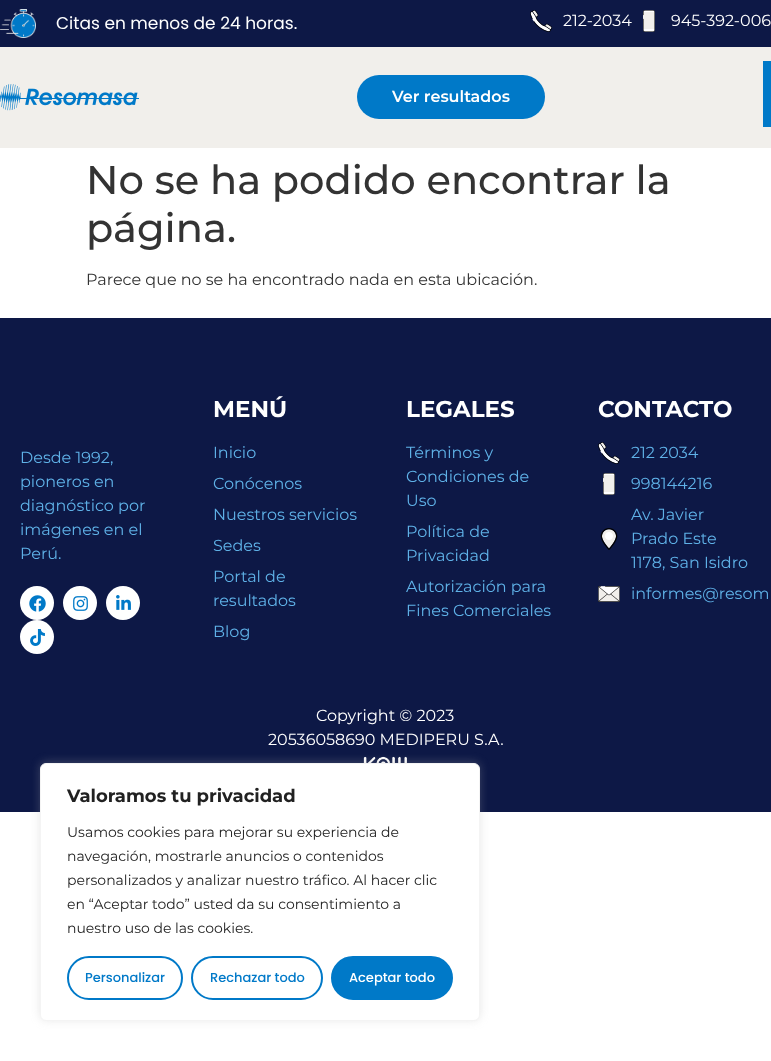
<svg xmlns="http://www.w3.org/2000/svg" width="771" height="1061">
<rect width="100%" height="100%" fill="#fff"/>
<rect width="771" height="47" fill="#0d1846"/>
<image x="0" y="9" width="36" height="29" href="media/1.png"/>
<text x="56" y="29" style="font-family:Poppins;font-size:17px;fill:#fff">Citas en menos de 24 horas.</text>
<image x="530" y="10" width="22" height="22" href="media/2.png"/>
<text x="563" y="26" style="font-family:Montserrat;font-size:16px;fill:#fff">212-2034</text>
<image x="643" y="10" width="12" height="22" href="media/3.png"/>
<text x="671" y="26" style="font-family:Montserrat;font-size:16px;fill:#fff">945-392-006</text>
<rect y="47" width="771" height="101" fill="#f1efeb"/>
<image x="0" y="84" width="139" height="27" href="media/4.png"/>
<rect x="357" y="75" width="188" height="44" rx="22" fill="#0079c8"/>
<text x="392" y="102" style="font-family:Montserrat;font-size:16px;font-weight:600;fill:#fff">Ver resultados</text>
<rect x="763" y="61" width="8" height="66" fill="#0079c8"/>
<text x="86" y="194" style="font-family:Montserrat;font-size:40px;font-weight:500;fill:#333">No se ha podido encontrar la</text>
<text x="86" y="242" style="font-family:Montserrat;font-size:40px;font-weight:500;fill:#333">página.</text>
<text x="86" y="285" style="font-family:Montserrat;font-size:16px;fill:#333">Parece que no se ha encontrado nada en esta ubicación.</text>
<rect y="318" width="771" height="494" fill="#0d1846"/>
<text x="20" y="463" style="font-family:Montserrat;font-size:16px;fill:#5fb1e7">Desde 1992,</text>
<text x="20" y="487" style="font-family:Montserrat;font-size:16px;fill:#5fb1e7">pioneros en</text>
<text x="20" y="511" style="font-family:Montserrat;font-size:16px;fill:#5fb1e7">diagnóstico por</text>
<text x="20" y="535" style="font-family:Montserrat;font-size:16px;fill:#5fb1e7">imágenes en el</text>
<text x="20" y="559" style="font-family:Montserrat;font-size:16px;fill:#5fb1e7">Perú.</text>
<circle cx="37" cy="603" r="17" fill="#fff"/>
<image x="29" y="595" width="17" height="17" href="media/5.png"/>
<circle cx="80" cy="603" r="17" fill="#fff"/>
<image x="73" y="596" width="15" height="15" href="media/6.png"/>
<circle cx="123" cy="603" r="17" fill="#fff"/>
<image x="116" y="595" width="15" height="15" href="media/7.png"/>
<circle cx="37" cy="637" r="17" fill="#fff"/>
<image x="30" y="629" width="15" height="17" href="media/8.png"/>
<text x="213" y="417" style="font-family:Montserrat;font-size:23px;font-weight:bold;fill:#fff">MENÚ</text>
<text x="213" y="458" style="font-family:Montserrat;font-size:16px;fill:#5fb1e7">Inicio</text>
<text x="213" y="489" style="font-family:Montserrat;font-size:16px;fill:#5fb1e7">Conócenos</text>
<text x="213" y="520" style="font-family:Montserrat;font-size:16px;fill:#5fb1e7">Nuestros servicios</text>
<text x="213" y="551" style="font-family:Montserrat;font-size:16px;fill:#5fb1e7">Sedes</text>
<text x="213" y="582" style="font-family:Montserrat;font-size:16px;fill:#5fb1e7">Portal de</text>
<text x="213" y="606" style="font-family:Montserrat;font-size:16px;fill:#5fb1e7">resultados</text>
<text x="213" y="637" style="font-family:Montserrat;font-size:16px;fill:#5fb1e7">Blog</text>
<text x="406" y="417" style="font-family:Montserrat;font-size:23px;font-weight:bold;fill:#fff">LEGALES</text>
<text x="406" y="458" style="font-family:Montserrat;font-size:16px;fill:#5fb1e7">Términos y</text>
<text x="406" y="482" style="font-family:Montserrat;font-size:16px;fill:#5fb1e7">Condiciones de</text>
<text x="406" y="506" style="font-family:Montserrat;font-size:16px;fill:#5fb1e7">Uso</text>
<text x="406" y="537" style="font-family:Montserrat;font-size:16px;fill:#5fb1e7">Política de</text>
<text x="406" y="561" style="font-family:Montserrat;font-size:16px;fill:#5fb1e7">Privacidad</text>
<text x="406" y="592" style="font-family:Montserrat;font-size:16px;fill:#5fb1e7">Autorización para</text>
<text x="406" y="616" style="font-family:Montserrat;font-size:16px;fill:#5fb1e7">Fines Comerciales</text>
<text x="598" y="417" style="font-family:Montserrat;font-size:23px;font-weight:bold;fill:#fff">CONTACTO</text>
<image x="598" y="442" width="22" height="22" href="media/2.png"/>
<text x="631" y="458" style="font-family:Montserrat;font-size:16px;fill:#5fb1e7">212 2034</text>
<image x="603" y="473" width="12" height="22" href="media/3.png"/>
<text x="631" y="489" style="font-family:Montserrat;font-size:16px;fill:#5fb1e7">998144216</text>
<image x="600" y="528" width="18" height="22" href="media/9.png"/>
<text x="631" y="520" style="font-family:Montserrat;font-size:16px;fill:#5fb1e7">Av. Javier</text>
<text x="631" y="544" style="font-family:Montserrat;font-size:16px;fill:#5fb1e7">Prado Este</text>
<text x="631" y="568" style="font-family:Montserrat;font-size:16px;fill:#5fb1e7">1178, San Isidro</text>
<image x="598" y="586" width="22" height="16" href="media/10.png"/>
<text x="631" y="599" style="font-family:Montserrat;font-size:16px;fill:#5fb1e7">informes@resom</text>
<text x="316" y="721" style="font-family:Montserrat;font-size:16px;fill:#fff">Copyright © 2023</text>
<text x="268" y="745" style="font-family:Montserrat;font-size:16px;fill:#fff">20536058690 MEDIPERU S.A.</text>
<image x="363" y="756" width="44" height="7" href="media/11.png"/>
<rect x="40" y="762" width="440" height="258" rx="6" fill="#acabab4d" filter="blur(5px)"/>
<rect x="40.5" y="763.5" width="439" height="257" rx="5.5" fill="#fff" stroke="#f4f4f4"/>
<text x="67" y="802" style="font-family:Montserrat;font-size:18px;font-weight:bold;fill:#212121">Valoramos tu privacidad</text>
<text x="67" y="837" style="font-family:Montserrat;font-size:14px;fill:#212121">Usamos cookies para mejorar su experiencia de</text>
<text x="67" y="861" style="font-family:Montserrat;font-size:14px;fill:#212121">navegación, mostrarle anuncios o contenidos</text>
<text x="67" y="885" style="font-family:Montserrat;font-size:14px;fill:#212121">personalizados y analizar nuestro tráfico. Al hacer clic</text>
<text x="67" y="909" style="font-family:Montserrat;font-size:14px;fill:#212121">en “Aceptar todo” usted da su consentimiento a</text>
<text x="67" y="933" style="font-family:Montserrat;font-size:14px;fill:#212121">nuestro uso de las cookies.</text>
<rect x="68" y="957" width="114" height="42" rx="21" fill="none" stroke="#0079c8" stroke-width="2"/>
<text x="85" y="982" style="font-family:Poppins;font-size:13px;font-weight:500;fill:#0079c8">Personalizar</text>
<rect x="192" y="957" width="130" height="42" rx="21" fill="none" stroke="#0079c8" stroke-width="2"/>
<text x="210" y="982" style="font-family:Poppins;font-size:13px;font-weight:500;fill:#0079c8">Rechazar todo</text>
<rect x="332" y="957" width="120" height="42" rx="21" fill="#0079c8" stroke="#0079c8" stroke-width="2"/>
<text x="349" y="982" style="font-family:Poppins;font-size:13px;font-weight:500;fill:#fff">Aceptar todo</text>
</svg>
